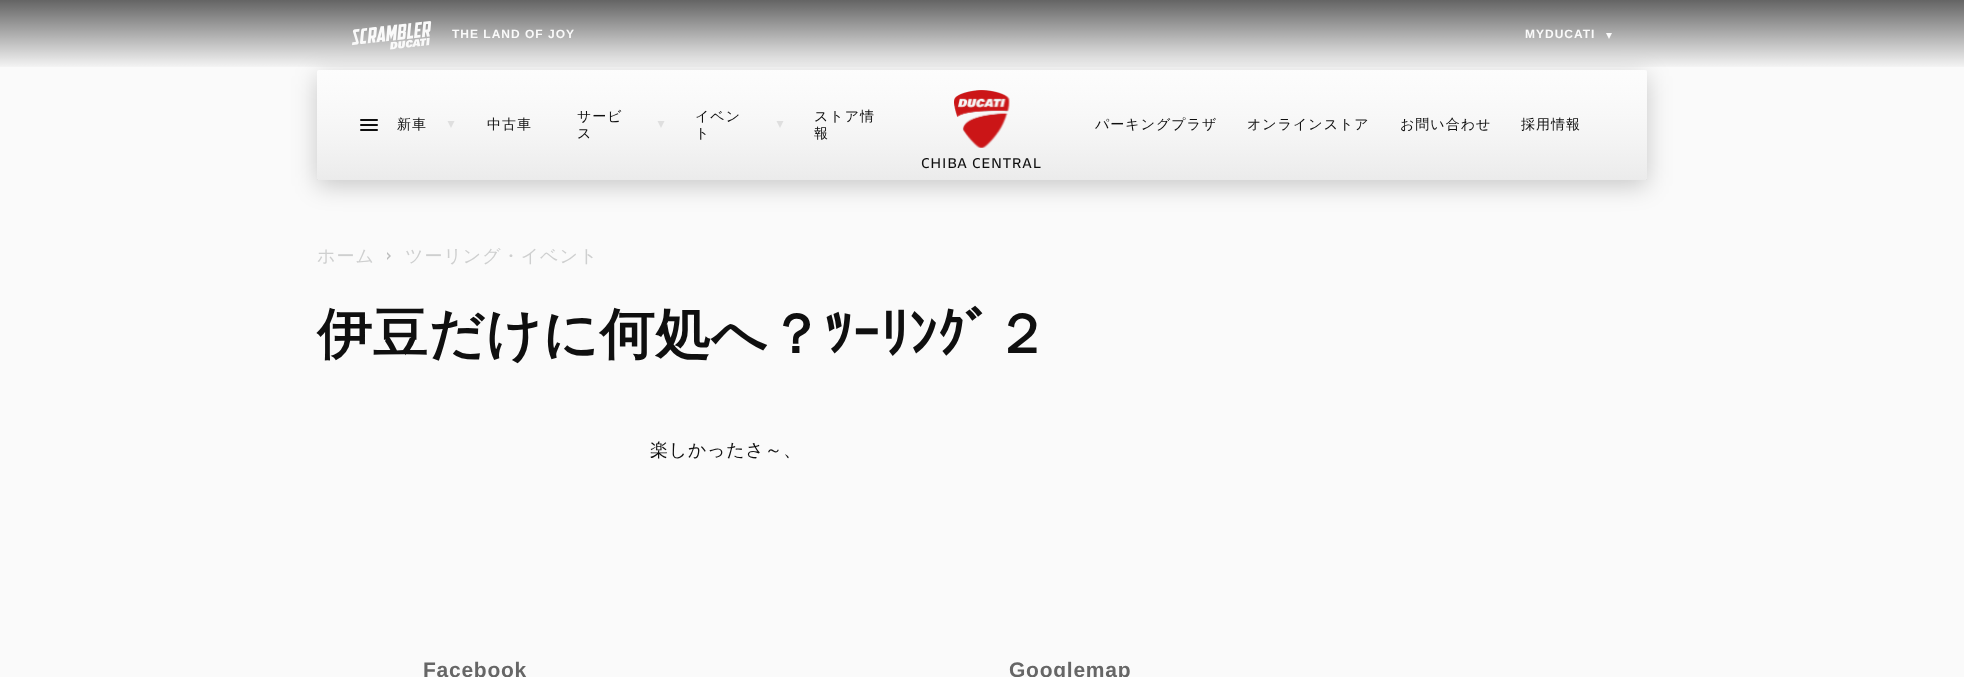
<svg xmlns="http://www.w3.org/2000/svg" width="1964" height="677">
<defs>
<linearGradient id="g1" gradientUnits="userSpaceOnUse" x1="982" y1="70" x2="982" y2="0"><stop offset="0" stop-color="#000" stop-opacity="0"/><stop offset="1" stop-color="#000" stop-opacity="0.6"/></linearGradient>
<linearGradient id="g2" gradientUnits="userSpaceOnUse" x1="982" y1="70" x2="982" y2="180"><stop offset="0" stop-color="#fff" stop-opacity="0.5"/><stop offset="1" stop-color="#ebebeb"/></linearGradient>
<clipPath id="clip1"><rect x="447" y="121" width="8" height="7"/></clipPath>
<clipPath id="clip2"><rect x="657" y="121" width="8" height="7"/></clipPath>
<clipPath id="clip3"><rect x="776" y="121" width="8" height="7"/></clipPath>
</defs>
<rect width="100%" height="100%" fill="#fafafa"/>
<rect x="317" y="76" width="1330" height="110" rx="2" fill="#00000033" filter="blur(12px)"/>
<rect width="1964" height="67" fill="url(#g1)"/>
<image x="352" y="21" width="80" height="29" href="media/1.png"/>
<text x="452" y="38" style="font-family:Liberation Sans;font-size:12px;font-weight:bold;letter-spacing:1px;fill:#fafafa">THE LAND OF JOY</text>
<text x="1525" y="38" style="font-family:Liberation Sans;font-size:12px;font-weight:bold;letter-spacing:1px;fill:#fafafa">MYDUCATI</text>
<path d="M1609 39l3-6h-6z" fill="#fafafa"/>
<rect x="317" y="179" width="1330" height="1" fill="#bbbcbc80"/>
<rect x="317" y="70" width="1330" height="110" rx="2" fill="#fafafa"/>
<rect x="317" y="70" width="1330" height="110" rx="2" fill="url(#g2)"/>
<rect x="360" y="124" width="18" height="2" rx="1" fill="#0f0f0f"/>
<rect x="360" y="119" width="18" height="2" rx="1" fill="#0f0f0f"/>
<rect x="360" y="129" width="18" height="2" rx="1" fill="#0f0f0f"/>
<text x="397" y="129" style="font-family:WenQuanYi Zen Hei;font-size:14px;font-weight:500;letter-spacing:1px;fill:#0f0f0f">新車</text>
<g clip-path="url(#clip1)">
<path d="M451 128l-4-8h8z" fill="#dfdfdf"/>
</g>
<text x="487" y="129" style="font-family:WenQuanYi Zen Hei;font-size:14px;font-weight:500;letter-spacing:1px;fill:#0f0f0f">中古車</text>
<text x="577" y="121" style="font-family:WenQuanYi Zen Hei;font-size:14px;font-weight:500;letter-spacing:1px;fill:#0f0f0f">サービ</text>
<g clip-path="url(#clip2)">
<path d="M661 128l-4-8h8z" fill="#dfdfdf"/>
</g>
<text x="577" y="138" style="font-family:WenQuanYi Zen Hei;font-size:14px;font-weight:500;letter-spacing:1px;fill:#0f0f0f">ス</text>
<text x="695" y="121" style="font-family:WenQuanYi Zen Hei;font-size:14px;font-weight:500;letter-spacing:1px;fill:#0f0f0f">イベン</text>
<g clip-path="url(#clip3)">
<path d="M780 128l-4-8h8z" fill="#dfdfdf"/>
</g>
<text x="695" y="138" style="font-family:WenQuanYi Zen Hei;font-size:14px;font-weight:500;letter-spacing:1px;fill:#0f0f0f">ト</text>
<text x="814" y="121" style="font-family:WenQuanYi Zen Hei;font-size:14px;font-weight:500;letter-spacing:1px;fill:#0f0f0f">ストア情</text>
<text x="814" y="138" style="font-family:WenQuanYi Zen Hei;font-size:14px;font-weight:500;letter-spacing:1px;fill:#0f0f0f">報</text>
<text x="1095" y="129" style="font-family:WenQuanYi Zen Hei;font-size:14px;font-weight:500;letter-spacing:1px;fill:#0f0f0f">パーキングプラザ</text>
<text x="1247" y="129" style="font-family:WenQuanYi Zen Hei;font-size:14px;font-weight:500;letter-spacing:1px;fill:#0f0f0f">オンラインストア</text>
<text x="1400" y="129" style="font-family:WenQuanYi Zen Hei;font-size:14px;font-weight:500;letter-spacing:1px;fill:#0f0f0f">お問い合わせ</text>
<text x="1521" y="129" style="font-family:WenQuanYi Zen Hei;font-size:14px;font-weight:500;letter-spacing:1px;fill:#0f0f0f">採用情報</text>
<image x="954" y="90" width="56" height="58" href="media/2.png"/>
<text x="921" y="168" style="font-family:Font;font-size:14px;font-weight:bold;letter-spacing:0.75px;fill:#0f0f0f">CHIBA CENTRAL</text>
<text x="317" y="262" style="font-family:WenQuanYi Zen Hei;font-size:18px;font-weight:500;letter-spacing:1px;fill:#cecfcf">ホーム</text>
<path d="M387 260v-8l4 4z" fill="#bbbcbc"/>
<text x="405" y="262" style="font-family:WenQuanYi Zen Hei;font-size:18px;font-weight:500;letter-spacing:1px;fill:#cecfcf">ツーリング・イベント</text>
<path d="M387 258v-4l2 2z" fill="#fafafa"/>
<text x="317" y="353" style="font-family:WenQuanYi Zen Hei;font-size:55px;font-weight:bold;letter-spacing:0.75px;fill:#0f0f0f">伊豆だけに何処へ？</text>
<text x="824" y="353" style="font-family:IPAPGothic;font-size:55px;font-weight:bold;letter-spacing:0.75px;fill:#0f0f0f">ﾂｰﾘﾝｸﾞ</text>
<text x="994" y="353" style="font-family:WenQuanYi Zen Hei;font-size:55px;font-weight:bold;letter-spacing:0.75px;fill:#0f0f0f">２</text>
<text x="650" y="456" style="font-family:WenQuanYi Zen Hei;font-size:18px;font-weight:500;letter-spacing:0.75px;fill:#0f0f0f">楽しかったさ～、</text>
<text x="423" y="677" style="font-family:Liberation Sans;font-size:21px;font-weight:bold;letter-spacing:0.75px;fill:#666">Facebook</text>
<text x="1009" y="677" style="font-family:Liberation Sans;font-size:21px;font-weight:bold;letter-spacing:0.75px;fill:#666">Googlemap</text>
</svg>
